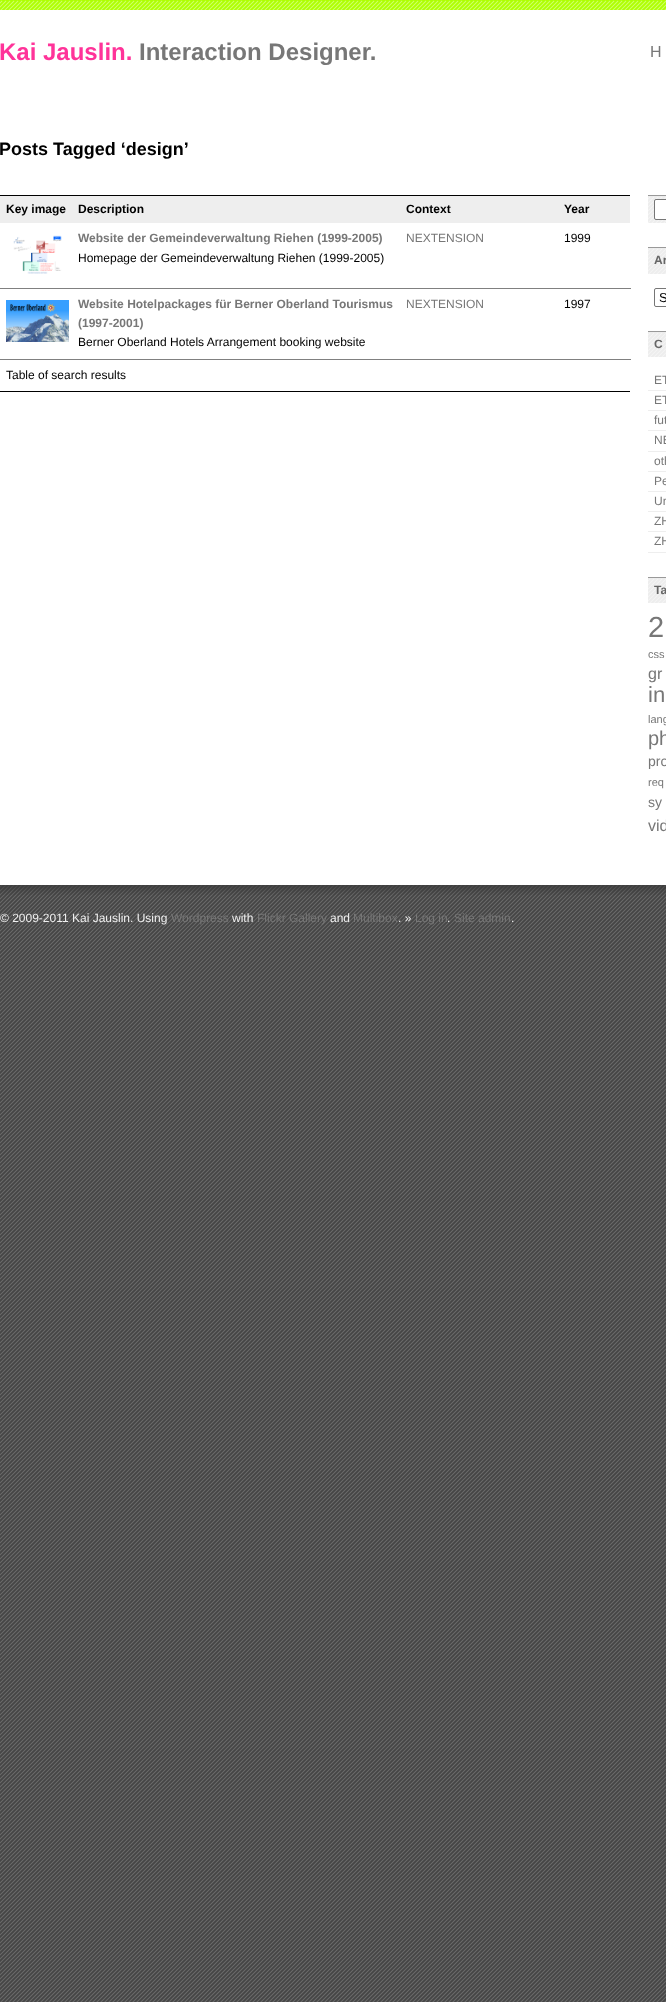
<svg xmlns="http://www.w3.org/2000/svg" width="666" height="2002">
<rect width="100%" height="100%" fill="#fff"/>
<image x="0" y="885" width="666" height="1117" href="media/1.png"/>
<image x="0" y="0" width="666" height="10" href="media/2.png"/>
<text x="-1" y="60" style="font-family:Liberation Sans;font-size:24px;font-weight:bold;fill:#f39">Kai Jauslin.</text>
<text x="139" y="60" style="font-family:Liberation Sans;font-size:24px;font-weight:bold;fill:#777">Interaction Designer.</text>
<text x="650" y="57" style="font-family:Liberation Sans;font-size:16px;fill:#777">H</text>
<text x="-1" y="155" style="font-family:Liberation Sans;font-size:18px;font-weight:bold;fill:#000">Posts Tagged ‘design’</text>
<rect y="195" width="630" height="1" fill="#000"/>
<rect y="196" width="630" height="27" fill="#eee"/>
<text x="6" y="213" style="font-family:Liberation Sans;font-size:12px;font-weight:bold;fill:#000">Key image</text>
<text x="78" y="213" style="font-family:Liberation Sans;font-size:12px;font-weight:bold;fill:#000">Description</text>
<text x="406" y="213" style="font-family:Liberation Sans;font-size:12px;font-weight:bold;fill:#000">Context</text>
<text x="564" y="213" style="font-family:Liberation Sans;font-size:12px;font-weight:bold;fill:#000">Year</text>
<image x="13" y="235" width="49" height="39" href="media/3.png"/>
<text x="78" y="242" style="font-family:Liberation Sans;font-size:12px;font-weight:bold;fill:#777">Website der Gemeindeverwaltung Riehen (1999-2005)</text>
<text x="78" y="262" style="font-family:Liberation Sans;font-size:12px;fill:#000">Homepage der Gemeindeverwaltung Riehen (1999-2005)</text>
<text x="406" y="242" style="font-family:Liberation Sans;font-size:12px;fill:#777">NEXTENSION</text>
<rect y="288" width="631" height="1" fill="#808080"/>
<text x="564" y="242" style="font-family:Liberation Sans;font-size:12px;fill:#000">1999</text>
<image x="6" y="300" width="63" height="42" href="media/4.png"/>
<text x="78" y="308" style="font-family:Liberation Sans;font-size:12px;font-weight:bold;fill:#777">Website Hotelpackages für Berner Oberland Tourismus</text>
<text x="78" y="327" style="font-family:Liberation Sans;font-size:12px;font-weight:bold;fill:#777">(1997-2001)</text>
<text x="78" y="346" style="font-family:Liberation Sans;font-size:12px;fill:#000">Berner Oberland Hotels Arrangement booking website</text>
<text x="406" y="308" style="font-family:Liberation Sans;font-size:12px;fill:#777">NEXTENSION</text>
<rect y="359" width="631" height="1" fill="#808080"/>
<text x="564" y="308" style="font-family:Liberation Sans;font-size:12px;fill:#000">1997</text>
<rect y="391" width="630" height="1" fill="#000"/>
<text x="6" y="379" style="font-family:Liberation Sans;font-size:12px;fill:#000">Table of search results</text>
<image x="648" y="196" width="18" height="27" href="media/5.png"/>
<rect x="648" y="195" width="18" height="1" fill="#999"/>
<rect x="654.5" y="199.5" width="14" height="20" rx="1.5" fill="#fff" stroke="#767676"/>
<image x="648" y="248" width="18" height="26" href="media/6.png"/>
<rect x="648" y="247" width="18" height="1" fill="#999"/>
<text x="654" y="264" style="font-family:Liberation Sans;font-size:12px;font-weight:bold;fill:#666">Ar</text>
<rect x="654.5" y="288.5" width="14" height="18" rx="1.5" fill="none" stroke="#767676"/>
<text x="659" y="302" style="font-family:Liberation Sans;font-size:13px;fill:#000">S</text>
<image x="648" y="332" width="18" height="25" href="media/7.png"/>
<rect x="648" y="331" width="18" height="1" fill="#999"/>
<text x="654" y="348" style="font-family:Liberation Sans;font-size:12px;font-weight:bold;fill:#666">C</text>
<rect x="648" y="390" width="18" height="1" fill="#eee"/>
<text x="654" y="384" style="font-family:Liberation Sans;font-size:12px;fill:#777">ET</text>
<rect x="648" y="410" width="18" height="1" fill="#eee"/>
<text x="654" y="404" style="font-family:Liberation Sans;font-size:12px;fill:#777">ET</text>
<rect x="648" y="430" width="18" height="1" fill="#eee"/>
<text x="654" y="424" style="font-family:Liberation Sans;font-size:12px;fill:#777">fut</text>
<rect x="648" y="451" width="18" height="1" fill="#eee"/>
<text x="654" y="444" style="font-family:Liberation Sans;font-size:12px;fill:#777">NE</text>
<rect x="648" y="471" width="18" height="1" fill="#eee"/>
<text x="654" y="465" style="font-family:Liberation Sans;font-size:12px;fill:#777">oth</text>
<rect x="648" y="491" width="18" height="1" fill="#eee"/>
<text x="654" y="485" style="font-family:Liberation Sans;font-size:12px;fill:#777">Pe</text>
<rect x="648" y="511" width="18" height="1" fill="#eee"/>
<text x="654" y="505" style="font-family:Liberation Sans;font-size:12px;fill:#777">Un</text>
<rect x="648" y="531" width="18" height="1" fill="#eee"/>
<text x="654" y="525" style="font-family:Liberation Sans;font-size:12px;fill:#777">ZH</text>
<rect x="648" y="552" width="18" height="1" fill="#eee"/>
<text x="654" y="545" style="font-family:Liberation Sans;font-size:12px;fill:#777">ZH</text>
<image x="648" y="578" width="18" height="25" href="media/7.png"/>
<rect x="648" y="577" width="18" height="1" fill="#999"/>
<text x="654" y="594" style="font-family:Liberation Sans;font-size:12px;font-weight:bold;fill:#666">Ta</text>
<text x="648" y="637" style="font-family:Liberation Sans;font-size:29px;fill:#777">2</text>
<text x="648" y="658" style="font-family:Liberation Sans;font-size:11px;fill:#777">css</text>
<text x="648" y="679" style="font-family:Liberation Sans;font-size:16px;fill:#777">gr</text>
<text x="648" y="702" style="font-family:Liberation Sans;font-size:22px;fill:#777">in</text>
<text x="648" y="723" style="font-family:Liberation Sans;font-size:11px;fill:#777">lang</text>
<text x="648" y="745" style="font-family:Liberation Sans;font-size:20px;fill:#777">ph</text>
<text x="648" y="766" style="font-family:Liberation Sans;font-size:14px;fill:#777">pro</text>
<text x="648" y="786" style="font-family:Liberation Sans;font-size:11px;fill:#777">req</text>
<text x="648" y="807" style="font-family:Liberation Sans;font-size:14px;fill:#777">sy</text>
<text x="648" y="831" style="font-family:Liberation Sans;font-size:16px;fill:#777">vid</text>
<image x="0" y="885" width="666" height="10" href="media/8.png"/>
<text x="0" y="922" style="font-family:Liberation Sans;font-size:12px;fill:#efefef">© 2009-2011 Kai Jauslin. Using</text>
<text x="171" y="922" style="font-family:Liberation Sans;font-size:12px;fill:#777">Wordpress</text>
<text x="232" y="922" style="font-family:Liberation Sans;font-size:12px;fill:#efefef">with</text>
<text x="257" y="922" style="font-family:Liberation Sans;font-size:12px;fill:#777">Flickr Gallery</text>
<text x="330" y="922" style="font-family:Liberation Sans;font-size:12px;fill:#efefef">and</text>
<text x="353" y="922" style="font-family:Liberation Sans;font-size:12px;fill:#777">Multibox</text>
<text x="398" y="922" style="font-family:Liberation Sans;font-size:12px;fill:#efefef">. »</text>
<text x="415" y="922" style="font-family:Liberation Sans;font-size:12px;fill:#777">Log in</text>
<text x="447" y="922" style="font-family:Liberation Sans;font-size:12px;fill:#efefef">.</text>
<text x="454" y="922" style="font-family:Liberation Sans;font-size:12px;fill:#777">Site admin</text>
<text x="511" y="922" style="font-family:Liberation Sans;font-size:12px;fill:#efefef">.</text>
</svg>
